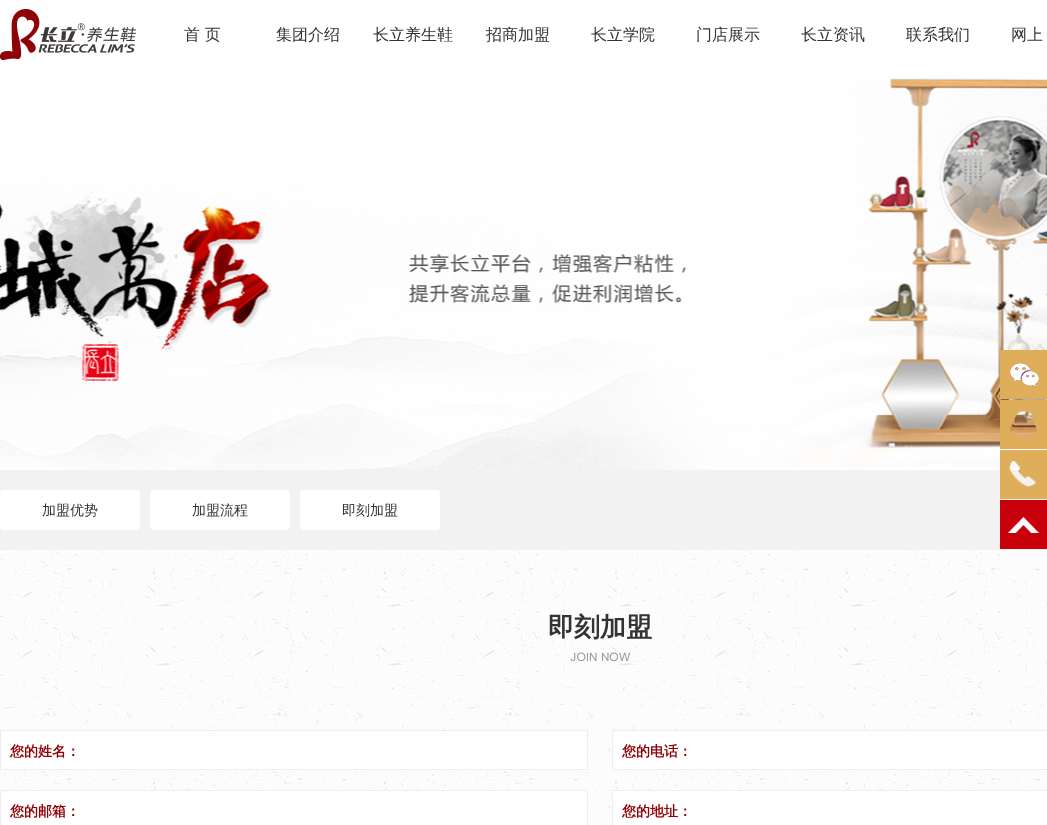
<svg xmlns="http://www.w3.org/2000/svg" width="1047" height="825">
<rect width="100%" height="100%" fill="#fff"/>
<image x="0" y="550" width="1047" height="275" href="media/1.png"/>
<image x="0" y="9" width="136" height="51" href="media/2.png"/>
<text x="184" y="40" style="font-family:WenQuanYi Zen Hei;font-size:16px;font-weight:500;fill:#333">首 页</text>
<text x="276" y="40" style="font-family:WenQuanYi Zen Hei;font-size:16px;font-weight:500;fill:#333">集团介绍</text>
<text x="373" y="40" style="font-family:WenQuanYi Zen Hei;font-size:16px;font-weight:500;fill:#333">长立养生鞋</text>
<text x="486" y="40" style="font-family:WenQuanYi Zen Hei;font-size:16px;font-weight:500;fill:#333">招商加盟</text>
<text x="591" y="40" style="font-family:WenQuanYi Zen Hei;font-size:16px;font-weight:500;fill:#333">长立学院</text>
<text x="696" y="40" style="font-family:WenQuanYi Zen Hei;font-size:16px;font-weight:500;fill:#333">门店展示</text>
<text x="801" y="40" style="font-family:WenQuanYi Zen Hei;font-size:16px;font-weight:500;fill:#333">长立资讯</text>
<text x="906" y="40" style="font-family:WenQuanYi Zen Hei;font-size:16px;font-weight:500;fill:#333">联系我们</text>
<text x="1011" y="40" style="font-family:WenQuanYi Zen Hei;font-size:16px;font-weight:500;fill:#333">网上</text>
<image x="0" y="70" width="1047" height="400" href="media/3.png"/>
<image x="1000" y="350" width="47" height="49" href="media/4.png"/>
<image x="1000" y="400" width="47" height="49" href="media/5.png"/>
<rect y="470" width="1047" height="80" fill="#f2f2f2"/>
<image x="1000" y="450" width="47" height="49" href="media/6.png"/>
<image x="1000" y="500" width="47" height="49" href="media/7.png"/>
<rect y="490" width="140" height="40" rx="4" fill="#fff"/>
<text x="42" y="515" style="font-family:WenQuanYi Zen Hei;font-size:14px;font-weight:500;fill:#333">加盟优势</text>
<rect x="150" y="490" width="140" height="40" rx="4" fill="#fff"/>
<text x="192" y="515" style="font-family:WenQuanYi Zen Hei;font-size:14px;font-weight:500;fill:#333">加盟流程</text>
<rect x="300" y="490" width="140" height="40" rx="4" fill="#fff"/>
<text x="342" y="515" style="font-family:WenQuanYi Zen Hei;font-size:14px;font-weight:500;fill:#333">即刻加盟</text>
<text x="548" y="636" style="font-family:WenQuanYi Zen Hei;font-size:26px;font-weight:bold;fill:#333">即刻加盟</text>
<text x="570" y="661" style="font-family:Poppins;font-size:12px;fill:#999">JOIN NOW</text>
<rect x="0.5" y="730.5" width="587" height="39" fill="#fff" stroke="#eee"/>
<text x="10" y="756" style="font-family:WenQuanYi Zen Hei;font-size:14px;font-weight:bold;fill:#8f0208">您的姓名：</text>
<rect x="612.5" y="730.5" width="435" height="39" fill="#fff" stroke="#eee"/>
<text x="622" y="756" style="font-family:WenQuanYi Zen Hei;font-size:14px;font-weight:bold;fill:#8f0208">您的电话：</text>
<rect x="0.5" y="790.5" width="587" height="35" fill="#fff" stroke="#eee"/>
<text x="10" y="816" style="font-family:WenQuanYi Zen Hei;font-size:14px;font-weight:bold;fill:#8f0208">您的邮箱：</text>
<rect x="612.5" y="790.5" width="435" height="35" fill="#fff" stroke="#eee"/>
<text x="622" y="816" style="font-family:WenQuanYi Zen Hei;font-size:14px;font-weight:bold;fill:#8f0208">您的地址：</text>
</svg>
